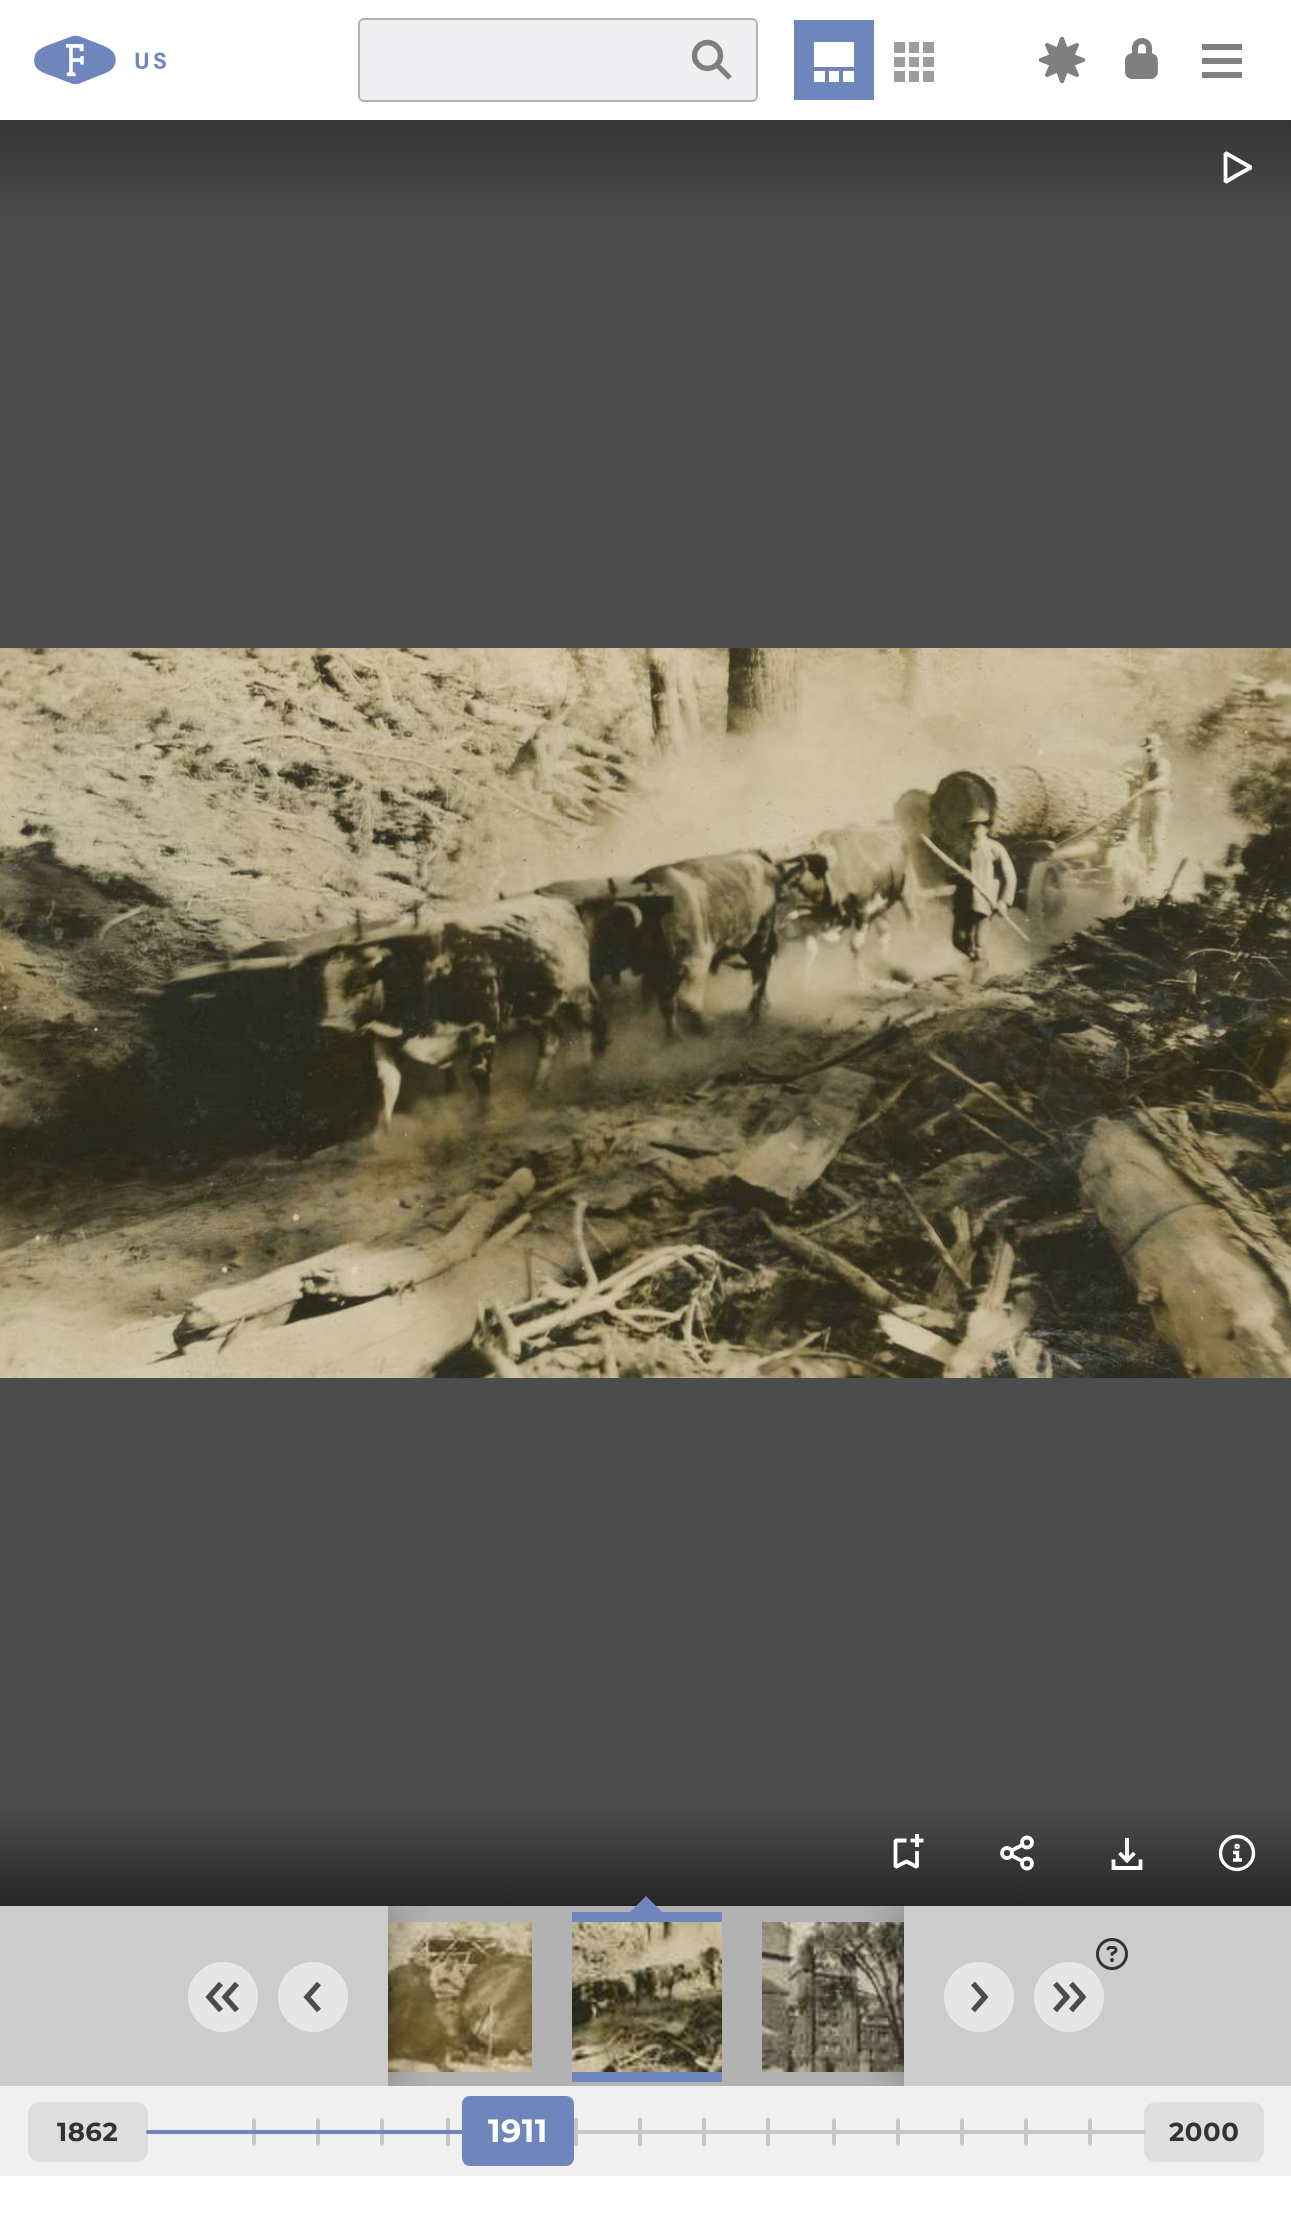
<svg xmlns="http://www.w3.org/2000/svg" width="1291" height="2216">
<defs>
<linearGradient id="g1" gradientUnits="userSpaceOnUse" x1="646" y1="120" x2="646" y2="220"><stop offset="0" stop-color="#353535"/><stop offset="1" stop-color="#4c4c4c"/></linearGradient>
<linearGradient id="g2" gradientUnits="userSpaceOnUse" x1="646" y1="1806" x2="646" y2="1906"><stop offset="0" stop-color="#4c4c4c"/><stop offset="1" stop-color="#262626"/></linearGradient>
<linearGradient id="g3" gradientUnits="userSpaceOnUse" x1="646" y1="1806" x2="646" y2="1906"><stop offset="0" stop-color="#f6f6f6"/><stop offset="1" stop-color="#f4f4f4"/></linearGradient>
<clipPath id="clip1"><rect x="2" y="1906" width="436" height="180"/></clipPath>
<clipPath id="clip2"><rect x="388" y="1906" width="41" height="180"/></clipPath>
<clipPath id="clip3"><rect x="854" y="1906" width="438" height="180"/></clipPath>
<clipPath id="clip4"><rect x="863" y="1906" width="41" height="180"/></clipPath>
</defs>
<rect width="100%" height="100%" fill="#fff"/>
<image x="34" y="35" width="132" height="50" href="media/1.png"/>
<rect x="359" y="19" width="398" height="82" rx="5" fill="#efeff1" stroke="#b2b2b2" stroke-width="2"/>
<circle cx="707.5" cy="55.5" r="13" fill="none" stroke="#7f7f7f" stroke-width="5.3"/>
<path d="M717 65l13 13" fill="none" stroke="#7f7f7f" stroke-width="5.3"/>
<rect x="794" y="20" width="80" height="80" fill="#6e86bc"/>
<rect x="814" y="42" width="40" height="25" fill="#fff"/>
<rect x="814" y="71" width="11" height="11" fill="#fff"/>
<rect x="829" y="71" width="10" height="11" fill="#fff"/>
<rect x="843" y="71" width="11" height="11" fill="#fff"/>
<image x="894" y="42" width="40" height="40" href="media/2.png"/>
<image x="1038" y="36" width="48" height="48" href="media/3.png"/>
<image x="1125" y="38" width="33" height="41" href="media/4.png"/>
<rect x="1202" y="58" width="40" height="6" fill="#7f7f7f"/>
<rect x="1202" y="44" width="40" height="6" fill="#7f7f7f"/>
<rect x="1202" y="72" width="40" height="6" fill="#7f7f7f"/>
<rect y="120" width="1291" height="100" fill="url(#g1)"/>
<path d="M1238 174.5l-12.5 7.5v-29l25.5 14.5z" fill="none" stroke="#fff" stroke-width="3.8" stroke-linejoin="bevel"/>
<rect y="1806" width="1291" height="100" fill="url(#g2)"/>
<rect x="1125" y="1838" width="4" height="23" fill="url(#g3)"/>
<rect x="915" y="1834" width="4" height="13" fill="url(#g3)"/>
<path d="M917 1851v16l-10.5-5.5l-11 5.5v-26.5h11" fill="none" stroke="#fff" stroke-width="3.8" stroke-linejoin="bevel"/>
<path d="M923.5 1840.5h-13" fill="none" stroke="#fff" stroke-width="3.8"/>
<circle cx="1027" cy="1842.5" r="5" fill="none" stroke="#fff" stroke-width="3.8"/>
<circle cx="1007" cy="1853" r="5" fill="none" stroke="#fff" stroke-width="3.8"/>
<circle cx="1027" cy="1863.5" r="5" fill="none" stroke="#fff" stroke-width="3.8"/>
<path d="M1023 1844.5l-12 6.5m.5 4.5l11.5 6" fill="none" stroke="#fff" stroke-width="3.8"/>
<path d="M1134.5 1853l-7.5 7.5l-7.5-7.5m-6 6.5v8.5h27v-8.5" fill="none" stroke="#fff" stroke-width="3.8"/>
<circle cx="1237" cy="1853" r="16.5" fill="none" stroke="#fff" stroke-width="3.4"/>
<path d="M1233 1852.5h4.5v7.5m-4.5 0h9" fill="none" stroke="#fff" stroke-width="3.4"/>
<circle cx="1237.1" cy="1846.5" r="1" fill="none" stroke="#fff" stroke-width="3.4"/>
<rect y="220" width="1291" height="1586" fill="#4c4c4c"/>
<image x="0" y="648" width="1291" height="730" href="media/5.png"/>
<rect y="1906" width="1291" height="180" fill="#ccc"/>
<rect x="388" y="1906" width="516" height="180" fill="#b2b2b2"/>
<image x="388" y="1922" width="144" height="150" href="media/6.png"/>
<rect y="2086" width="1291" height="90" fill="#f0f0f0"/>
<rect x="28" y="2102" width="120" height="60" rx="12" fill="#dedede"/>
<rect x="252" y="2118" width="4" height="28" rx="2" fill="#c6c6c6"/>
<rect x="316" y="2118" width="4" height="28" rx="2" fill="#c6c6c6"/>
<rect x="380" y="2118" width="4" height="28" rx="2" fill="#c6c6c6"/>
<rect x="446" y="2118" width="4" height="28" rx="2" fill="#c6c6c6"/>
<rect x="574" y="2118" width="4" height="28" rx="2" fill="#c6c6c6"/>
<rect x="638" y="2118" width="4" height="28" rx="2" fill="#c6c6c6"/>
<rect x="702" y="2118" width="4" height="28" rx="2" fill="#c6c6c6"/>
<rect x="766" y="2118" width="4" height="28" rx="2" fill="#c6c6c6"/>
<rect x="832" y="2118" width="4" height="28" rx="2" fill="#c6c6c6"/>
<rect x="896" y="2118" width="4" height="28" rx="2" fill="#c6c6c6"/>
<rect x="960" y="2118" width="4" height="28" rx="2" fill="#c6c6c6"/>
<rect x="1024" y="2118" width="4" height="28" rx="2" fill="#c6c6c6"/>
<rect x="1088" y="2118" width="4" height="28" rx="2" fill="#c6c6c6"/>
<rect x="1144" y="2102" width="120" height="60" rx="12" fill="#dedede"/>
<rect x="146" y="2130" width="1000" height="4" rx="2" fill="#c6c6c6"/>
<rect x="146" y="2130" width="376" height="4" rx="2" fill="#6e86bc"/>
<rect x="462" y="2096" width="112" height="70" rx="8" fill="#6e86bc"/>
<g clip-path="url(#clip1)">
<g clip-path="url(#clip2)">
<rect y="1906" width="388" height="180" fill="#00000066" filter="blur(25px)"/>
</g>
</g>
<circle cx="223" cy="1997" r="35" fill="#e6e6e6"/>
<path d="M223 1962c19 0 35 16 35 35c0 19-16 35-35 35c-19 0-35-16-35-35c0-19 16-35 35-35z" fill="#e6e6e6"/>
<path d="M237 1983.5l-12 13.5l12 13.5m-16-27l-12 13.5l12 13.5" fill="none" stroke="#4c4c4c" stroke-width="5.4"/>
<circle cx="313" cy="1997" r="35" fill="#e6e6e6"/>
<path d="M313 1962c19 0 35 16 35 35c0 19-16 35-35 35c-19 0-35-16-35-35c0-19 16-35 35-35z" fill="#e6e6e6"/>
<path d="M319 1983.5l-12 13.5l12 13.5" fill="none" stroke="#4c4c4c" stroke-width="5.4"/>
<path d="M662 1912h-32l16-16z" fill="#6e86bc"/>
<rect x="572" y="1912" width="150" height="170" fill="#6e86bc"/>
<image x="572" y="1922" width="150" height="150" href="media/7.png"/>
<image x="762" y="1922" width="142" height="150" href="media/8.png"/>
<g clip-path="url(#clip3)">
<g clip-path="url(#clip4)">
<rect x="904" y="1906" width="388" height="180" fill="#00000066" filter="blur(25px)"/>
</g>
</g>
<circle cx="979" cy="1997" r="35" fill="#e6e6e6"/>
<path d="M979 2032c-19 0-35-16-35-35c0-19 16-35 35-35c19 0 35 16 35 35c0 19-16 35-35 35z" fill="#e6e6e6"/>
<path d="M973 2010.5l12-13.5l-12-13.5" fill="none" stroke="#4c4c4c" stroke-width="5.4"/>
<circle cx="1069" cy="1997" r="35" fill="#e6e6e6"/>
<path d="M1069 2032c-19 0-35-16-35-35c0-19 16-35 35-35c19 0 35 16 35 35c0 19-16 35-35 35z" fill="#e6e6e6"/>
<path d="M1055 2010.5l12-13.5l-12-13.5m16 27l12-13.5l-12-13.5" fill="none" stroke="#4c4c4c" stroke-width="5.4"/>
<image x="1096" y="1938" width="32" height="32" href="media/9.png"/>
<text x="57" y="2141" style="font-family:Montserrat;font-size:26px;font-weight:bold;letter-spacing:0.5px;fill:#333">1862</text>
<text x="488" y="2142" style="font-family:Montserrat;font-size:32px;font-weight:bold;letter-spacing:0.5px;fill:#fefefe">1911</text>
<text x="1169" y="2141" style="font-family:Montserrat;font-size:26px;font-weight:bold;letter-spacing:0.5px;fill:#333">2000</text>
</svg>
